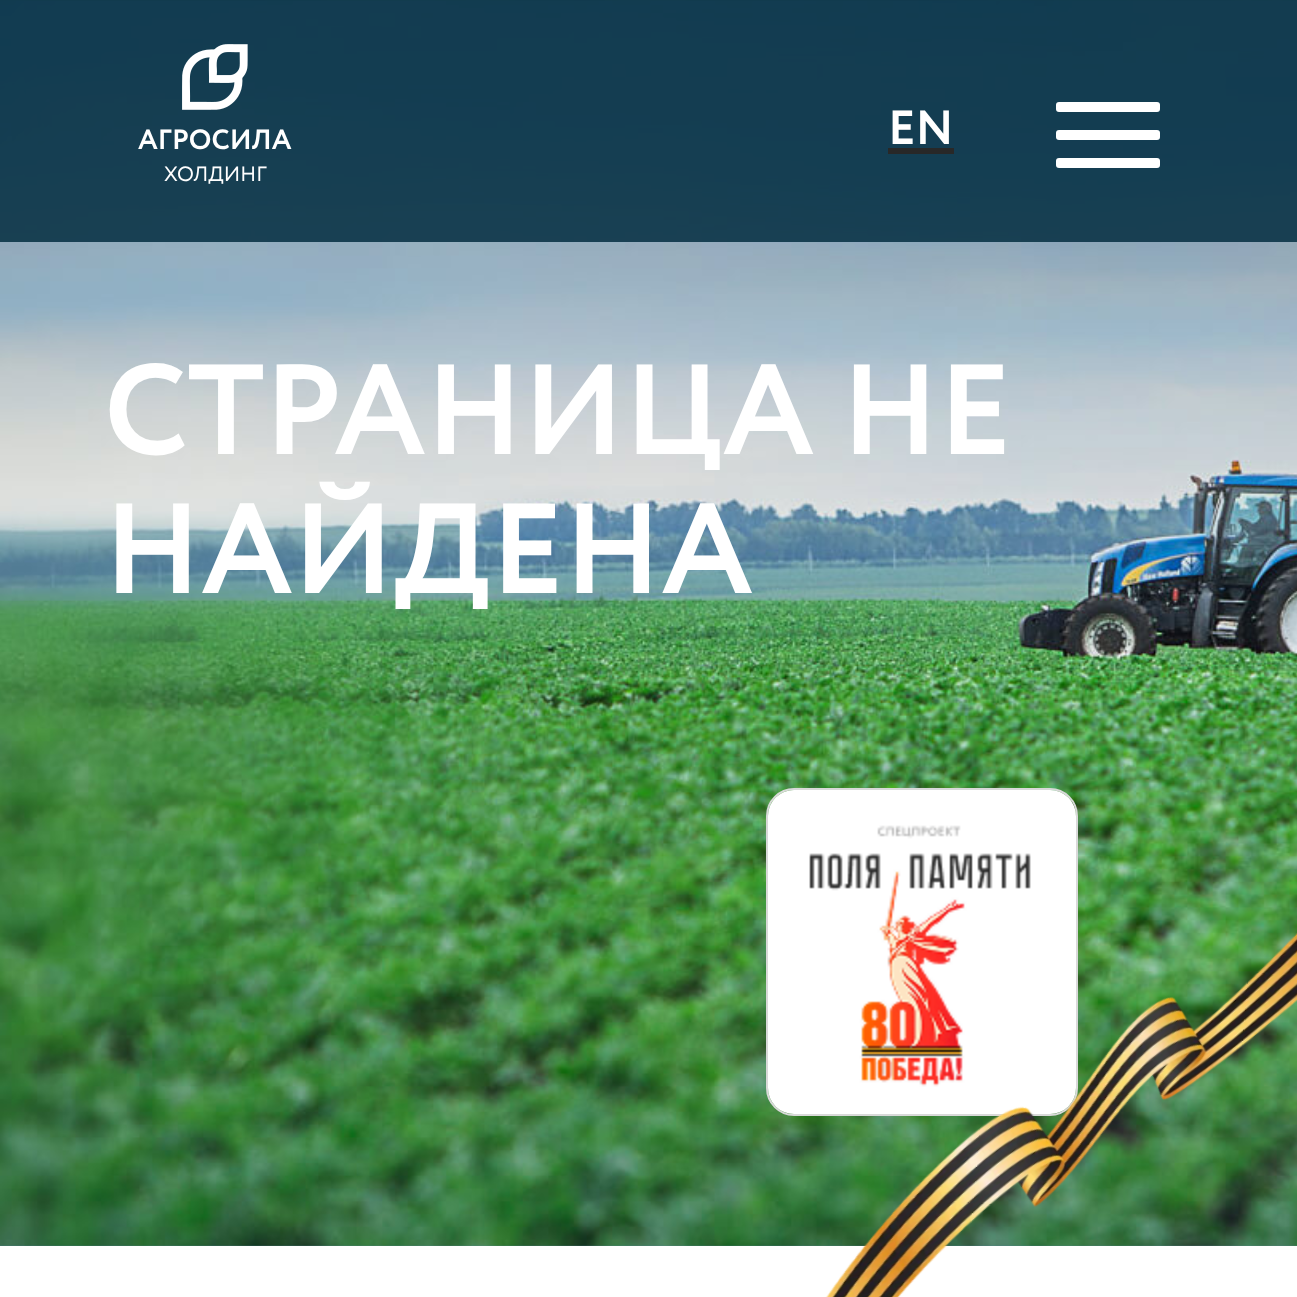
<svg xmlns="http://www.w3.org/2000/svg" width="1297" height="1297">
<rect width="100%" height="100%" fill="#fff"/>
<image x="0" y="0" width="1297" height="1246" href="media/2.png"/>
<rect width="1297" height="242" fill="#0b3447e6"/>
<image x="182" y="44" width="66" height="66" href="media/1.png"/>
<text x="138" y="149" style="font-family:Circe;font-size:27.75px;font-weight:bold;fill:#fff">АГРОСИЛА</text>
<text x="164" y="181" style="font-family:Circe;font-size:20.75px;fill:#fff">ХОЛДИНГ</text>
<text x="888" y="144" style="font-family:Circe;font-size:48px;font-weight:bold;fill:#fff">EN</text>
<rect x="888" y="148" width="66" height="6" fill="#282828"/>
<rect x="1056" y="130" width="104" height="10" rx="3" fill="#fff"/>
<rect x="1056" y="102" width="104" height="10" rx="3" fill="#fff"/>
<rect x="1056" y="158" width="104" height="10" rx="3" fill="#fff"/>
<text x="104" y="454" style="font-family:Circe;font-size:128px;font-weight:bold;fill:#fff">СТРАНИЦА НЕ</text>
<text x="104" y="593" style="font-family:Circe;font-size:128px;font-weight:bold;fill:#fff">НАЙДЕНА</text>
<rect x="767" y="789" width="310" height="326" rx="27" fill="none" stroke="#d9d9d9" stroke-width="2"/>
<image x="768" y="790" width="308" height="324" href="media/3.png"/>
<image x="825" y="933" width="472" height="364" href="media/4.png"/>
</svg>
